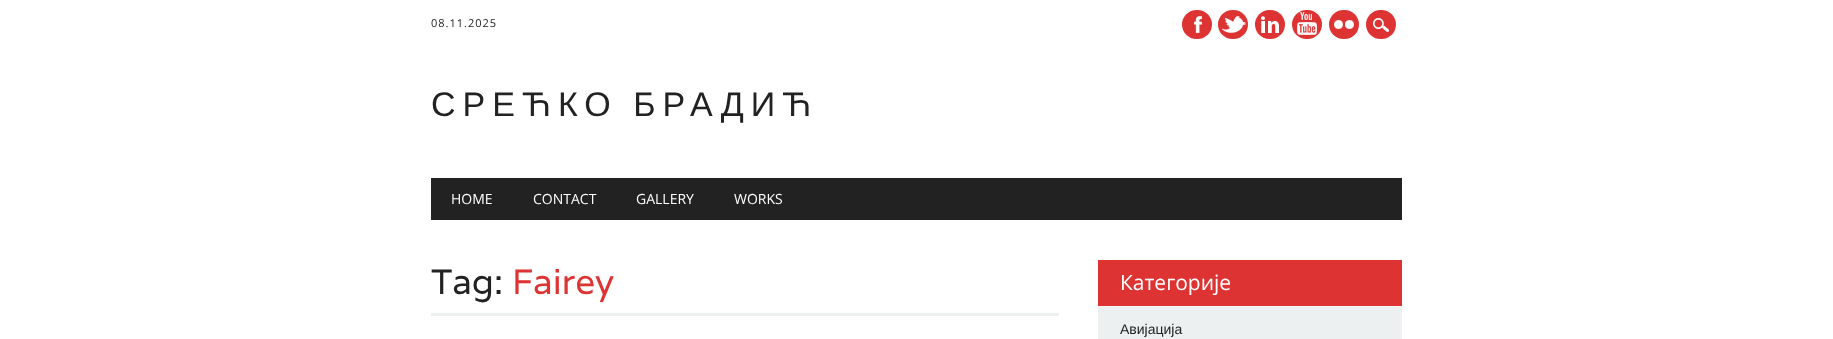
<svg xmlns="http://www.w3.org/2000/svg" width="1833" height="339">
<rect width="100%" height="100%" fill="#fff"/>
<text x="431" y="27" style="font-family:Open Sans;font-size:11px;letter-spacing:1px;fill:#222">08.11.2025</text>
<rect x="1182" y="10" width="30" height="29" rx="14.5" fill="#d33"/>
<image x="1194" y="16" width="8" height="17" href="media/1.png"/>
<rect x="1218" y="10" width="30" height="29" rx="14.5" fill="#d33"/>
<image x="1222" y="16" width="24" height="17" href="media/2.png"/>
<rect x="1255" y="10" width="30" height="29" rx="14.5" fill="#d33"/>
<image x="1261" y="16" width="18" height="17" href="media/3.png"/>
<rect x="1292" y="10" width="30" height="29" rx="14.5" fill="#d33"/>
<image x="1297" y="12" width="20" height="23" href="media/4.png"/>
<rect x="1329" y="10" width="30" height="29" rx="14.5" fill="#d33"/>
<image x="1334" y="20" width="20" height="9" href="media/5.png"/>
<rect x="1366" y="10" width="30" height="29" rx="14.5" fill="#d33"/>
<image x="1373" y="18" width="16" height="14" href="media/6.png"/>
<text x="431" y="116" word-spacing="-1" style="font-family:Liberation Sans;font-size:34px;letter-spacing:7px;fill:#222">СРЕЋКО БРАДИЋ</text>
<rect x="431" y="178" width="971" height="42" fill="#222"/>
<text x="451" y="204" style="font-family:Open Sans;font-size:14px;fill:#fff">HOME</text>
<text x="533" y="204" style="font-family:Open Sans;font-size:14px;fill:#fff">CONTACT</text>
<text x="636" y="204" style="font-family:Open Sans;font-size:14px;fill:#fff">GALLERY</text>
<text x="734" y="204" style="font-family:Open Sans;font-size:14px;fill:#fff">WORKS</text>
<rect x="431" y="313" width="628" height="3" fill="#ecf0f1"/>
<text x="431" y="294" style="font-family:Varela;font-size:35px;fill:#222">Tag:</text>
<text x="512" y="294" style="font-family:Varela;font-size:35px;fill:#d33">Fairey</text>
<rect x="1098" y="307" width="304" height="32" fill="#ecf0f1"/>
<rect x="1098" y="260" width="304" height="46" fill="#d33"/>
<text x="1120" y="290" style="font-family:Open Sans;font-size:21px;fill:#fff">Категорије</text>
<rect x="1098" y="306" width="304" height="1" fill="#f6f8f8"/>
<text x="1120" y="334" style="font-family:Liberation Sans;font-size:14px;fill:#222">Авијација</text>
</svg>
